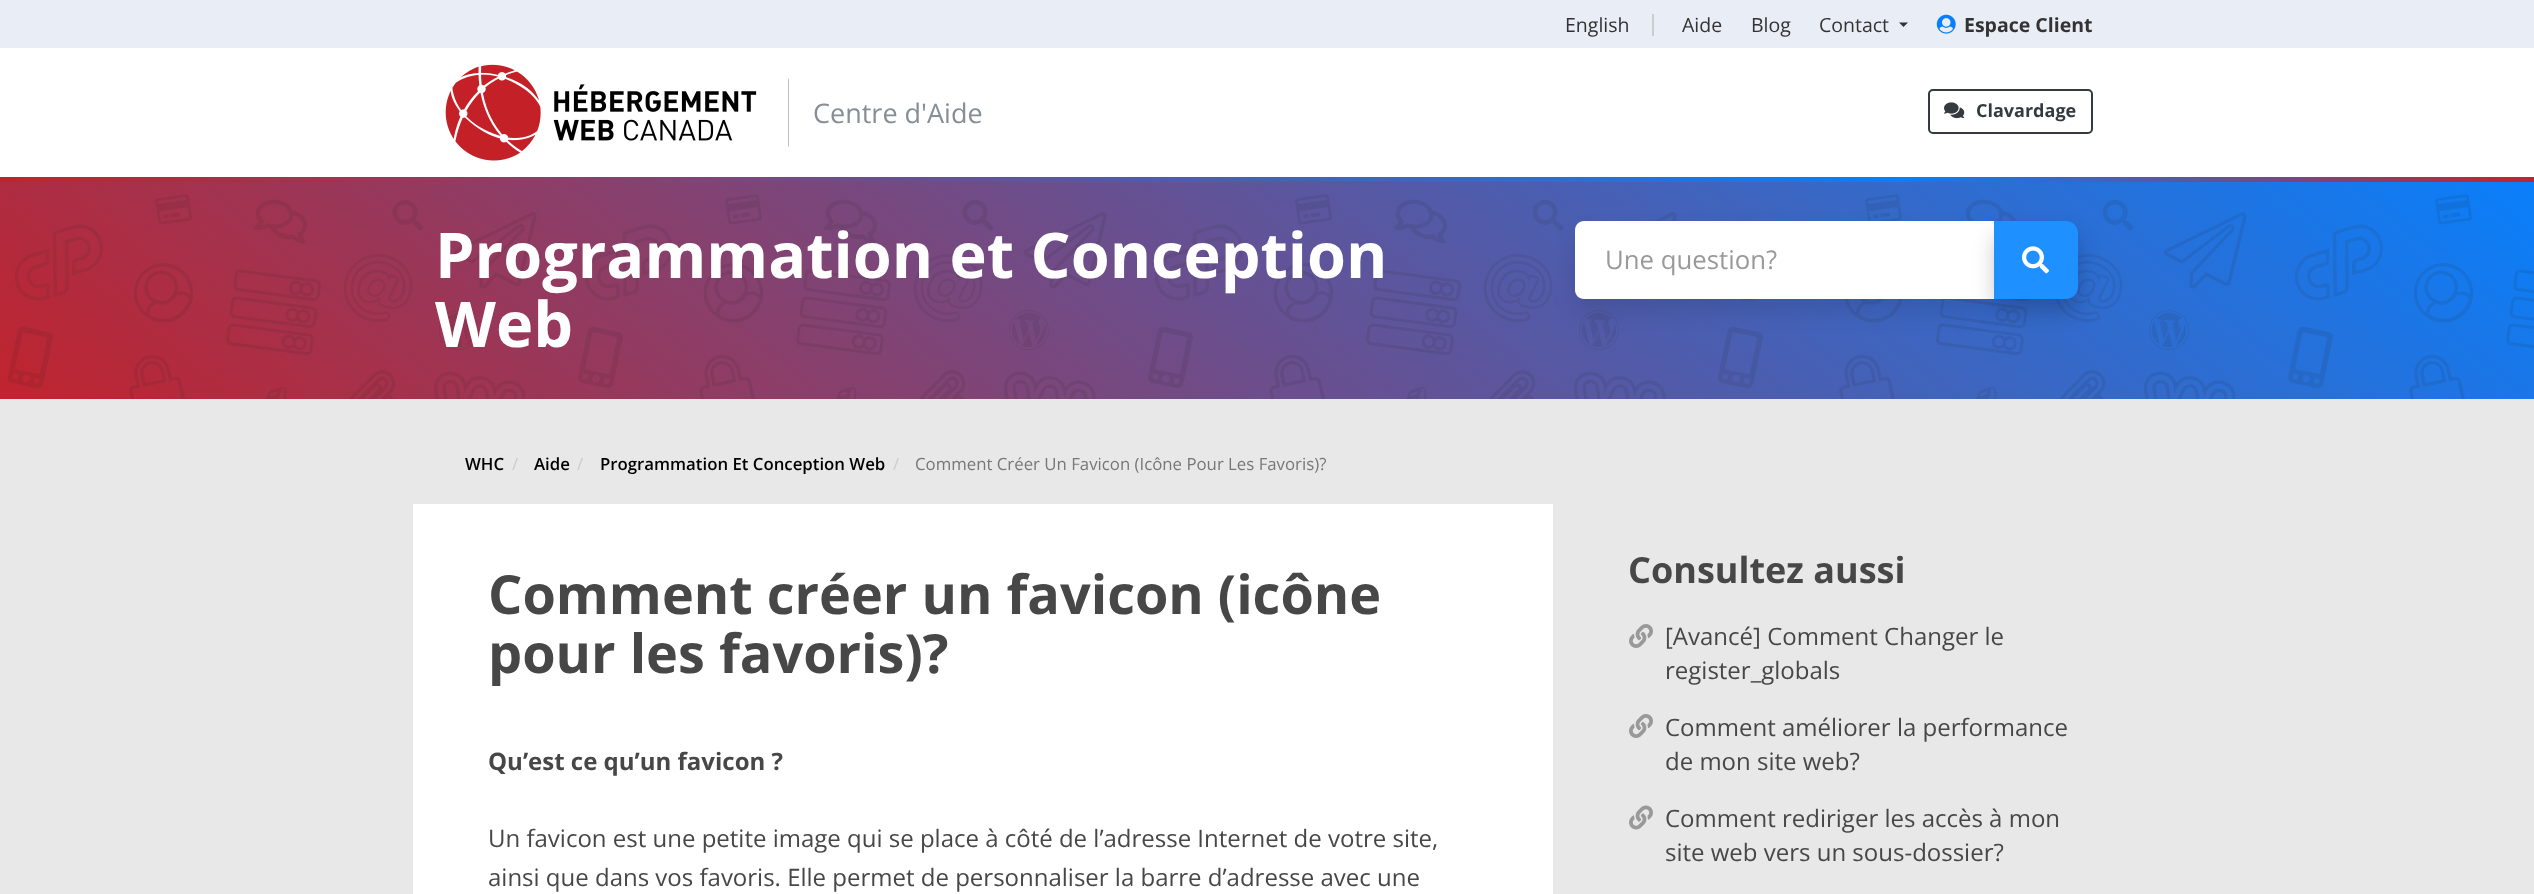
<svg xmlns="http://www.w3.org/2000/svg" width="2534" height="894">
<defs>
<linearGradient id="g1" gradientUnits="userSpaceOnUse" x1="0" y1="179" x2="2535" y2="179"><stop offset="0" stop-color="#c0242e"/><stop offset="0.75" stop-color="#097ffa"/><stop offset="1" stop-color="#c0242e"/></linearGradient>
</defs>
<rect width="100%" height="100%" fill="#fff"/>
<rect width="2534" height="48" fill="#e9edf6"/>
<rect x="1652" y="14" width="2" height="22" fill="#ccc"/>
<text x="1565" y="32" style="font-family:Open Sans;font-size:19.5px;fill:#333">English</text>
<text x="1682" y="32" style="font-family:Open Sans;font-size:19.5px;fill:#333">Aide</text>
<text x="1751" y="32" style="font-family:Open Sans;font-size:19.5px;fill:#333">Blog</text>
<text x="1819" y="32" style="font-family:Open Sans;font-size:19.5px;fill:#333">Contact</text>
<path d="M1899 22.5h9l-4.5 4.5z" fill="#333"/>
<image x="1936" y="14" width="20" height="20" href="media/1.png"/>
<text x="1964" y="32" style="font-family:Open Sans;font-size:19.5px;font-weight:bold;fill:#333">Espace Client</text>
<image x="445" y="64" width="312" height="97" href="media/2.png"/>
<path d="M788 147v-69l1 2v66z" fill="#bfbfbf"/>
<text x="813" y="123" style="font-family:Open Sans;font-size:27px;fill:#868e96">Centre d'Aide</text>
<rect x="1929" y="90" width="163" height="43" rx="4" fill="none" stroke="#343a40" stroke-width="2"/>
<image x="1944" y="102" width="21" height="17" href="media/3.png"/>
<text x="1976" y="117" style="font-family:Open Sans;font-size:18px;font-weight:bold;fill:#343a40">Clavardage</text>
<rect y="177" width="2534" height="5" fill="url(#g1)"/>
<image x="0" y="182" width="2534" height="217" href="media/4.png"/>
<text x="435" y="278" style="font-family:Open Sans;font-size:63px;font-weight:bold;fill:#fff">Programmation et Conception</text>
<text x="435" y="347" style="font-family:Open Sans;font-size:63px;font-weight:bold;fill:#fff">Web</text>
<rect x="1575" y="234" width="419" height="78" rx="9" fill="#0000001a" filter="blur(10.5px)"/>
<path d="M1584 221h410v78h-410c-5 0-9-4-9-9v-60c0-5 4-9 9-9z" fill="#fff"/>
<text x="1605" y="269" style="font-family:Open Sans;font-size:25.75px;fill:#999">Une question?</text>
<rect x="1994" y="234" width="84" height="78" rx="12" fill="#00000033" filter="blur(10.5px)"/>
<path d="M1994 221h72c6.5 0 12 5.5 12 12v54c0 6.5-5.5 12-12 12h-72z" fill="#1e90ff"/>
<image x="2022" y="246" width="27" height="28" href="media/5.png"/>
<rect y="399" width="2534" height="495" fill="#e8e8e8"/>
<text x="465" y="470" style="font-family:Open Sans;font-size:16.8px;font-weight:600;fill:#000">WHC</text>
<text x="512" y="470" style="font-family:Open Sans;font-size:16.8px;fill:#ccc">/</text>
<text x="534" y="470" style="font-family:Open Sans;font-size:16.8px;font-weight:600;fill:#000">Aide</text>
<text x="577" y="470" style="font-family:Open Sans;font-size:16.8px;fill:#ccc">/</text>
<text x="600" y="470" style="font-family:Open Sans;font-size:16.8px;font-weight:600;fill:#000">Programmation Et Conception Web</text>
<text x="893" y="470" style="font-family:Open Sans;font-size:16.8px;fill:#ccc">/</text>
<text x="915" y="470" style="font-family:Open Sans;font-size:16.8px;fill:#777">Comment Créer Un Favicon (Icône Pour Les Favoris)?</text>
<rect x="413" y="504" width="1140" height="390" fill="#fff"/>
<text x="488" y="614" style="font-family:Open Sans;font-size:54px;font-weight:bold;fill:#484747">Comment créer un favicon (icône</text>
<text x="488" y="673" style="font-family:Open Sans;font-size:54px;font-weight:bold;fill:#484747">pour les favoris)?</text>
<text x="488" y="770" style="font-family:Open Sans;font-size:24px;font-weight:bold;fill:#484747">Qu’est ce qu’un favicon ?</text>
<text x="488" y="847" style="font-family:Open Sans;font-size:24px;fill:#484747">Un favicon est une petite image qui se place à côté de l’adresse Internet de votre site,</text>
<text x="488" y="886" style="font-family:Open Sans;font-size:24px;fill:#484747">ainsi que dans vos favoris. Elle permet de personnaliser la barre d’adresse avec une</text>
<text x="1628" y="583" style="font-family:Open Sans;font-size:36px;font-weight:bold;fill:#484747">Consultez aussi</text>
<image x="1629" y="624" width="24" height="24" href="media/6.png"/>
<text x="1665" y="645" style="font-family:Open Sans;font-size:24px;fill:#484747">[Avancé] Comment Changer le</text>
<text x="1665" y="679" style="font-family:Open Sans;font-size:24px;fill:#484747">register_globals</text>
<image x="1629" y="714" width="24" height="24" href="media/6.png"/>
<text x="1665" y="736" style="font-family:Open Sans;font-size:24px;fill:#484747">Comment améliorer la performance</text>
<text x="1665" y="770" style="font-family:Open Sans;font-size:24px;fill:#484747">de mon site web?</text>
<image x="1629" y="805" width="24" height="25" href="media/7.png"/>
<text x="1665" y="827" style="font-family:Open Sans;font-size:24px;fill:#484747">Comment rediriger les accès à mon</text>
<text x="1665" y="861" style="font-family:Open Sans;font-size:24px;fill:#484747">site web vers un sous-dossier?</text>
</svg>
